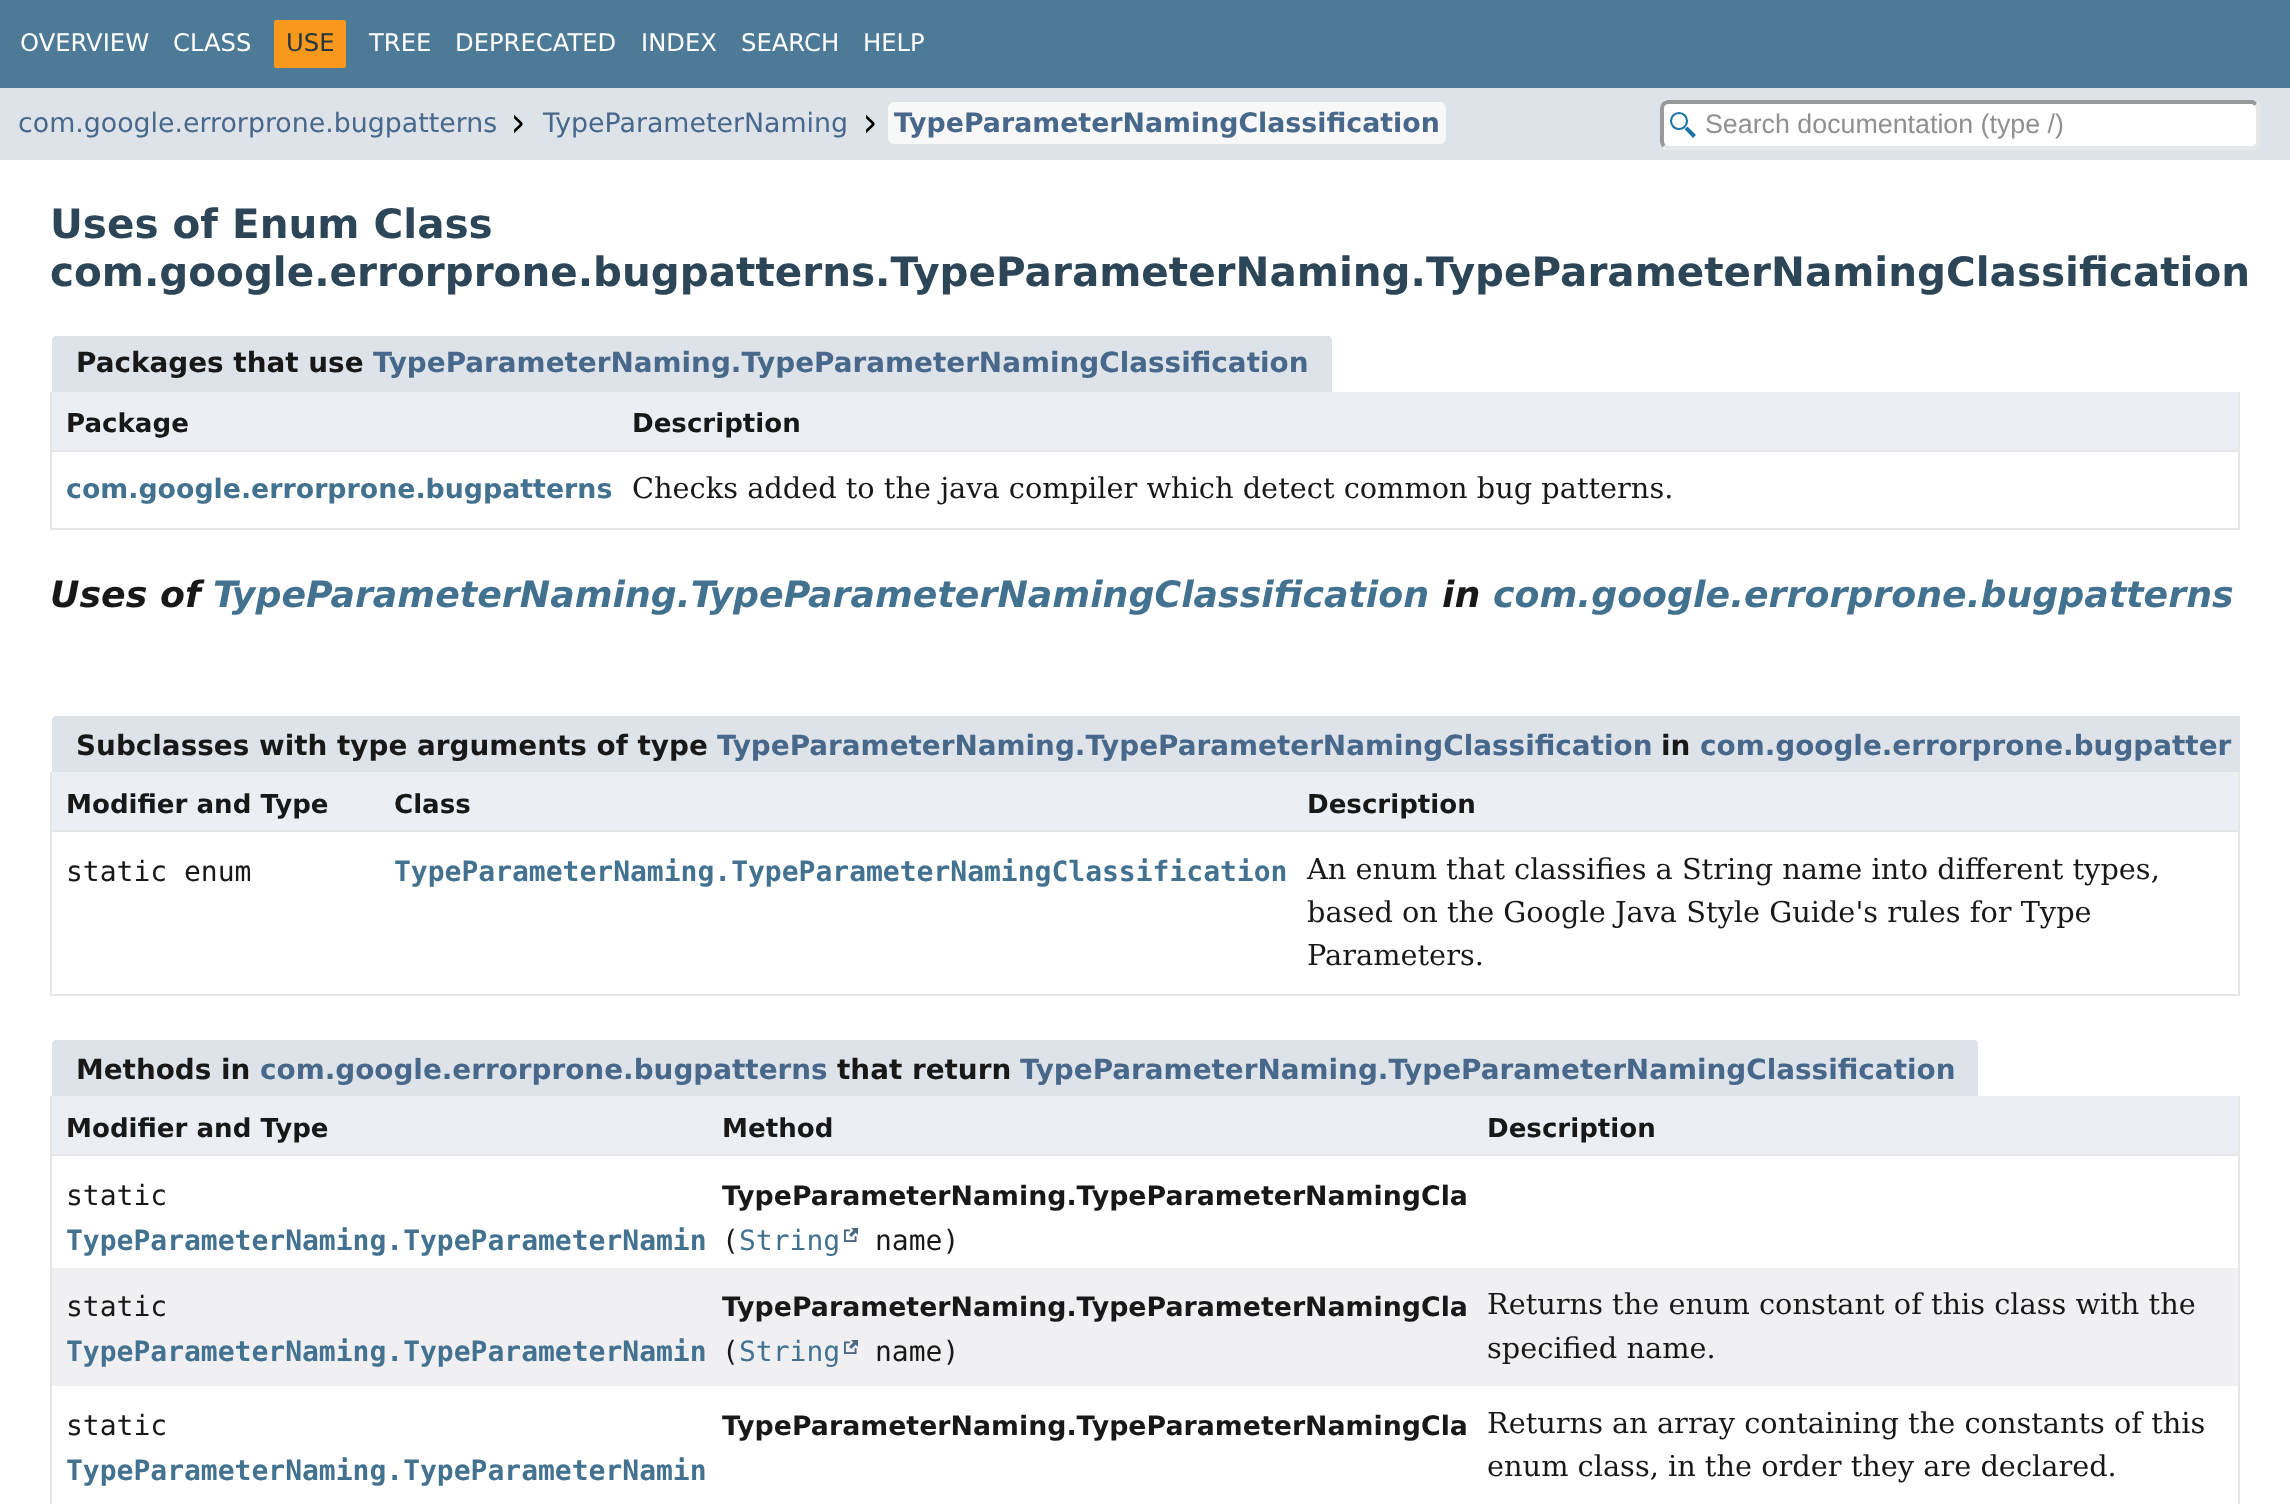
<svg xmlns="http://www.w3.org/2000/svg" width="2290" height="1504">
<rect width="100%" height="100%" fill="#fff"/>
<rect width="2290" height="88" fill="#4d7a97"/>
<text x="20" y="51" style="font-family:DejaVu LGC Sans;font-size:24.25px;fill:#fff">OVERVIEW</text>
<text x="173" y="51" style="font-family:DejaVu LGC Sans;font-size:24.25px;fill:#fff">CLASS</text>
<rect x="274" y="20" width="72" height="48" rx="2" fill="#f8981d"/>
<text x="286" y="51" style="font-family:DejaVu LGC Sans;font-size:24.25px;fill:#253441">USE</text>
<text x="369" y="51" style="font-family:DejaVu LGC Sans;font-size:24.25px;fill:#fff">TREE</text>
<text x="455" y="51" style="font-family:DejaVu LGC Sans;font-size:24.25px;fill:#fff">DEPRECATED</text>
<text x="641" y="51" style="font-family:DejaVu LGC Sans;font-size:24.25px;fill:#fff">INDEX</text>
<text x="741" y="51" style="font-family:DejaVu LGC Sans;font-size:24.25px;fill:#fff">SEARCH</text>
<text x="863" y="51" style="font-family:DejaVu LGC Sans;font-size:24.25px;fill:#fff">HELP</text>
<rect y="88" width="2290" height="72" fill="#dee3e9"/>
<text x="18" y="132" style="font-family:DejaVu LGC Sans;font-size:26.8px;fill:#47688a">com.google.errorprone.bugpatterns</text>
<image x="514" y="115" width="9" height="18" href="media/1.png"/>
<text x="543" y="132" style="font-family:DejaVu LGC Sans;font-size:26.8px;fill:#47688a">TypeParameterNaming</text>
<image x="866" y="115" width="9" height="18" href="media/1.png"/>
<rect x="888" y="102" width="558" height="42" rx="6" fill="#f8f8f8"/>
<text x="894" y="132" style="font-family:DejaVu LGC Sans;font-size:26.8px;font-weight:bold;fill:#47688a">TypeParameterNamingClassification</text>
<rect x="1660" y="100" width="600" height="50" rx="8" fill="#fff"/>
<path d="M1687.5 126.5c-1 1-2 2-3 2.5l8.5 9l3-3z" fill="#1a73a8"/>
<circle cx="1679" cy="121" r="8" fill="none" stroke="#1a73a8" stroke-width="2.1"/>
<path d="M2256 104c3 2.5 2 6.5 2 9.5v23c0 3.5 1 7.5-2 10l-3.5 1.5h-585l-3.5-2" fill="none" stroke="#e6e6e6" stroke-width="4"/>
<path d="M1664 146c-3-2.5-2-6.5-2-9.5v-23c0-3.5-1-7.5 2-10l3.5-1.5h585l3.5 2" fill="none" stroke="#999" stroke-width="4"/>
<text x="1705" y="133" style="font-family:Liberation Sans;font-size:26.8px;fill:#909090">Search documentation (type /)</text>
<text x="50" y="238" style="font-family:DejaVu LGC Sans;font-size:40.47px;font-weight:bold;fill:#2c4557">Uses of Enum Class</text>
<text x="50" y="286" style="font-family:DejaVu LGC Sans;font-size:40.47px;font-weight:bold;fill:#2c4557">com.google.errorprone.bugpatterns.TypeParameterNaming.TypeParameterNamingClassification</text>
<path d="M56 336h1272c2 0 4 2 4 4v52h-1280v-52c0-2 2-4 4-4z" fill="#dee3e9"/>
<text x="76" y="372" style="font-family:DejaVu LGC Sans;font-size:27.85px;font-weight:bold;fill:#181818">Packages that use</text>
<text x="373" y="372" style="font-family:DejaVu LGC Sans;font-size:27.85px;font-weight:bold;fill:#47688a">TypeParameterNaming.TypeParameterNamingClassification</text>
<rect x="2238" y="392" width="2" height="138" fill="#e6e6e6"/>
<rect x="50" y="528" width="2190" height="2" fill="#e6e6e6"/>
<rect x="50" y="392" width="2" height="138" fill="#e6e6e6"/>
<rect x="52" y="392" width="2186" height="58" fill="#ebeff4"/>
<rect x="52" y="450" width="2186" height="2" fill="#e6e6e6"/>
<text x="66" y="432" style="font-family:DejaVu LGC Sans;font-size:26.1px;font-weight:bold;fill:#181818">Package</text>
<text x="632" y="432" style="font-family:DejaVu LGC Sans;font-size:26.1px;font-weight:bold;fill:#181818">Description</text>
<text x="66" y="498" style="font-family:DejaVu LGC Sans;font-size:26.8px;font-weight:bold;fill:#437291">com.google.errorprone.bugpatterns</text>
<text x="632" y="498" style="font-family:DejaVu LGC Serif;font-size:28.8px;fill:#181818">Checks added to the java compiler which detect common bug patterns.</text>
<text x="50" y="607" style="font-family:DejaVu LGC Sans;font-size:36.35px;font-weight:bold;font-style:italic;fill:#181818">Uses of</text>
<text x="213" y="607" style="font-family:DejaVu LGC Sans;font-size:36.35px;font-weight:bold;font-style:italic;fill:#437291">TypeParameterNaming.TypeParameterNamingClassification</text>
<text x="1442" y="607" style="font-family:DejaVu LGC Sans;font-size:36.35px;font-weight:bold;font-style:italic;fill:#181818">in</text>
<text x="1493" y="607" style="font-family:DejaVu LGC Sans;font-size:36.35px;font-weight:bold;font-style:italic;fill:#437291">com.google.errorprone.bugpatterns</text>
<path d="M56 716h2184v56h-2188v-52c0-2 2-4 4-4z" fill="#dee3e9"/>
<text x="76" y="755" style="font-family:DejaVu LGC Sans;font-size:27.85px;font-weight:bold;fill:#181818">Subclasses with type arguments of type</text>
<text x="717" y="755" style="font-family:DejaVu LGC Sans;font-size:27.85px;font-weight:bold;fill:#47688a">TypeParameterNaming.TypeParameterNamingClassification</text>
<text x="1661" y="755" style="font-family:DejaVu LGC Sans;font-size:27.85px;font-weight:bold;fill:#181818">in</text>
<text x="1700" y="755" style="font-family:DejaVu LGC Sans;font-size:27.85px;font-weight:bold;fill:#47688a">com.google.errorprone.bugpatter</text>
<rect x="2238" y="772" width="2" height="224" fill="#e6e6e6"/>
<rect x="50" y="994" width="2190" height="2" fill="#e6e6e6"/>
<rect x="50" y="772" width="2" height="224" fill="#e6e6e6"/>
<rect x="52" y="772" width="2186" height="58" fill="#ebeff4"/>
<rect x="52" y="830" width="2186" height="2" fill="#e6e6e6"/>
<text x="66" y="813" style="font-family:DejaVu LGC Sans;font-size:26.1px;font-weight:bold;fill:#181818">Modifier and Type</text>
<text x="394" y="813" style="font-family:DejaVu LGC Sans;font-size:26.1px;font-weight:bold;fill:#181818">Class</text>
<text x="1307" y="813" style="font-family:DejaVu LGC Sans;font-size:26.1px;font-weight:bold;fill:#181818">Description</text>
<text x="66" y="881" style="font-family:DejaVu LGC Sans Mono;font-size:28px;fill:#181818">static enum</text>
<text x="394" y="881" style="font-family:DejaVu LGC Sans Mono;font-size:28px;font-weight:bold;fill:#437291">TypeParameterNaming.TypeParameterNamingClassification</text>
<text x="1307" y="879" style="font-family:DejaVu LGC Serif;font-size:28.8px;fill:#181818">An enum that classifies a String name into different types,</text>
<text x="1307" y="922" style="font-family:DejaVu LGC Serif;font-size:28.8px;fill:#181818">based on the Google Java Style Guide's rules for Type</text>
<text x="1307" y="965" style="font-family:DejaVu LGC Serif;font-size:28.8px;fill:#181818">Parameters.</text>
<path d="M56 1040h1918c2 0 4 2 4 4v52h-1926v-52c0-2 2-4 4-4z" fill="#dee3e9"/>
<text x="76" y="1079" style="font-family:DejaVu LGC Sans;font-size:27.85px;font-weight:bold;fill:#181818">Methods in</text>
<text x="260" y="1079" style="font-family:DejaVu LGC Sans;font-size:27.85px;font-weight:bold;fill:#47688a">com.google.errorprone.bugpatterns</text>
<text x="837" y="1079" style="font-family:DejaVu LGC Sans;font-size:27.85px;font-weight:bold;fill:#181818">that return</text>
<text x="1020" y="1079" style="font-family:DejaVu LGC Sans;font-size:27.85px;font-weight:bold;fill:#47688a">TypeParameterNaming.TypeParameterNamingClassification</text>
<rect x="2238" y="1096" width="2" height="408" fill="#e6e6e6"/>
<rect x="50" y="1096" width="2" height="408" fill="#e6e6e6"/>
<rect x="52" y="1096" width="2186" height="58" fill="#ebeff4"/>
<rect x="52" y="1154" width="2186" height="2" fill="#e6e6e6"/>
<text x="66" y="1137" style="font-family:DejaVu LGC Sans;font-size:26.1px;font-weight:bold;fill:#181818">Modifier and Type</text>
<text x="722" y="1137" style="font-family:DejaVu LGC Sans;font-size:26.1px;font-weight:bold;fill:#181818">Method</text>
<text x="1487" y="1137" style="font-family:DejaVu LGC Sans;font-size:26.1px;font-weight:bold;fill:#181818">Description</text>
<text x="66" y="1205" style="font-family:DejaVu LGC Sans Mono;font-size:28px;fill:#181818">static</text>
<text x="66" y="1250" style="font-family:DejaVu LGC Sans Mono;font-size:28px;font-weight:bold;fill:#437291">TypeParameterNaming.TypeParameterNamin</text>
<text x="722" y="1205" style="font-family:DejaVu LGC Sans;font-size:26.8px;font-weight:bold;fill:#181818">TypeParameterNaming.TypeParameterNamingCla</text>
<text x="722" y="1250" style="font-family:DejaVu LGC Sans Mono;font-size:28px;fill:#181818">(</text>
<text x="739" y="1250" style="font-family:DejaVu LGC Sans Mono;font-size:28px;fill:#437291">String</text>
<image x="844" y="1228" width="14" height="14" href="media/2.png"/>
<text x="875" y="1250" style="font-family:DejaVu LGC Sans Mono;font-size:28px;fill:#181818">name)</text>
<rect x="52" y="1268" width="2186" height="118" fill="#f0f0f2"/>
<text x="66" y="1316" style="font-family:DejaVu LGC Sans Mono;font-size:28px;fill:#181818">static</text>
<text x="66" y="1361" style="font-family:DejaVu LGC Sans Mono;font-size:28px;font-weight:bold;fill:#437291">TypeParameterNaming.TypeParameterNamin</text>
<text x="722" y="1316" style="font-family:DejaVu LGC Sans;font-size:26.8px;font-weight:bold;fill:#181818">TypeParameterNaming.TypeParameterNamingCla</text>
<text x="722" y="1361" style="font-family:DejaVu LGC Sans Mono;font-size:28px;fill:#181818">(</text>
<text x="739" y="1361" style="font-family:DejaVu LGC Sans Mono;font-size:28px;fill:#437291">String</text>
<image x="844" y="1340" width="14" height="14" href="media/3.png"/>
<text x="875" y="1361" style="font-family:DejaVu LGC Sans Mono;font-size:28px;fill:#181818">name)</text>
<text x="1487" y="1314" style="font-family:DejaVu LGC Serif;font-size:28.8px;fill:#181818">Returns the enum constant of this class with the</text>
<text x="1487" y="1358" style="font-family:DejaVu LGC Serif;font-size:28.8px;fill:#181818">specified name.</text>
<text x="66" y="1435" style="font-family:DejaVu LGC Sans Mono;font-size:28px;fill:#181818">static</text>
<text x="66" y="1480" style="font-family:DejaVu LGC Sans Mono;font-size:28px;font-weight:bold;fill:#437291">TypeParameterNaming.TypeParameterNamin</text>
<text x="722" y="1435" style="font-family:DejaVu LGC Sans;font-size:26.8px;font-weight:bold;fill:#181818">TypeParameterNaming.TypeParameterNamingCla</text>
<text x="1487" y="1433" style="font-family:DejaVu LGC Serif;font-size:28.8px;fill:#181818">Returns an array containing the constants of this</text>
<text x="1487" y="1476" style="font-family:DejaVu LGC Serif;font-size:28.8px;fill:#181818">enum class, in the order they are declared.</text>
</svg>
